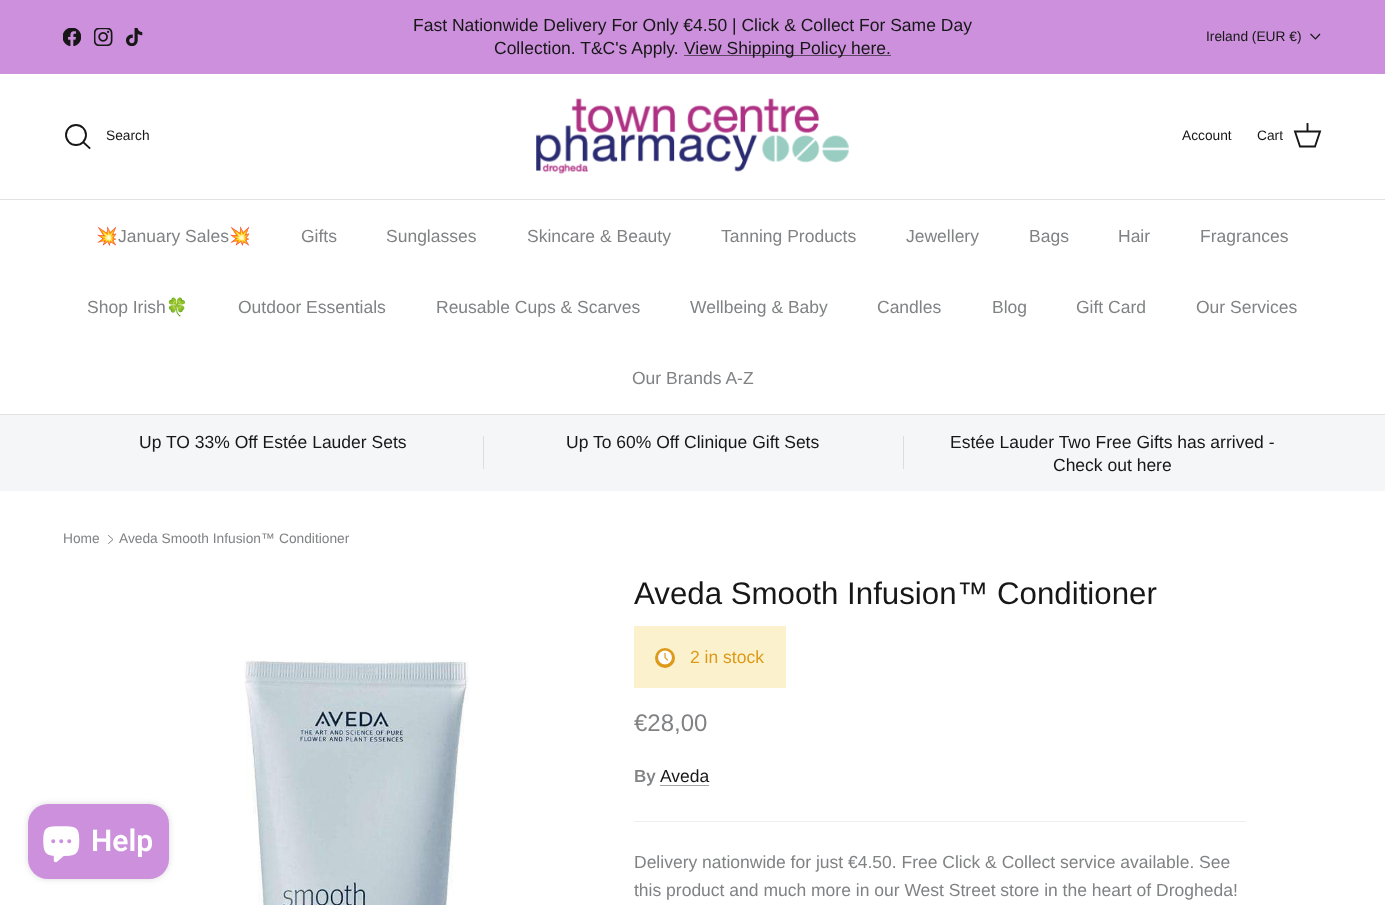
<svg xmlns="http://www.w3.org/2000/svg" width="1385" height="905">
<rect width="100%" height="100%" fill="#fff"/>
<rect width="1385" height="74" fill="#cc90dc"/>
<image x="63" y="28" width="18" height="18" href="media/1.png"/>
<image x="94" y="28" width="19" height="18" href="media/2.png"/>
<image x="126" y="28" width="17" height="18" href="media/3.png"/>
<text x="413" y="31" style="font-family:Arimo;font-size:17.5px;fill:#171717">Fast Nationwide Delivery For Only €4.50 | Click &amp; Collect For Same Day</text>
<text x="494" y="54" style="font-family:Arimo;font-size:17.5px;fill:#171717">Collection. T&amp;C's Apply.</text>
<rect x="684" y="55" width="207" height="1" fill="#5f4766"/>
<text x="684" y="54" style="font-family:Arimo;font-size:17.5px;fill:#171717">View Shipping Policy here.</text>
<text x="1206" y="41" style="font-family:Arimo;font-size:13.75px;fill:#171717">Ireland (EUR €)</text>
<path d="M1320 34l-4.5 5l-5-5" fill="none" stroke="#171717" stroke-width="1.2"/>
<rect y="199" width="1385" height="1" fill="#e2e2e2"/>
<circle cx="76" cy="135" r="10" fill="none" stroke="#171717" stroke-width="1.9"/>
<text x="106" y="140" style="font-family:Arimo;font-size:13.75px;fill:#171717">Search</text>
<path d="M83.5 142.5l6 5.5" fill="none" stroke="#171717" stroke-width="1.9" stroke-linecap="square"/>
<image x="536" y="98" width="313" height="76" href="media/4.png"/>
<text x="1182" y="140" style="font-family:Arimo;font-size:13.75px;fill:#171717">Account</text>
<text x="1257" y="140" style="font-family:Arimo;font-size:13.75px;fill:#171717">Cart</text>
<path d="M1295 131.5h25l-5 15h-15z" fill="none" stroke="#171717" stroke-width="1.9"/>
<path d="M1307.5 131v-7" fill="none" stroke="#171717" stroke-width="1.9" stroke-linecap="square"/>
<rect y="414" width="1385" height="1" fill="#e2e2e2"/>
<text x="96" y="242" style="font-family:Noto Color Emoji;font-size:17.5px;fill:#808284">💥</text>
<text x="118" y="242" style="font-family:Arimo;font-size:17.5px;fill:#808284">January Sales</text>
<text x="229" y="242" style="font-family:Noto Color Emoji;font-size:17.5px;fill:#808284">💥</text>
<text x="301" y="242" style="font-family:Arimo;font-size:17.5px;fill:#808284">Gifts</text>
<text x="386" y="242" style="font-family:Arimo;font-size:17.5px;fill:#808284">Sunglasses</text>
<text x="527" y="242" style="font-family:Arimo;font-size:17.5px;fill:#808284">Skincare &amp; Beauty</text>
<text x="721" y="242" style="font-family:Arimo;font-size:17.5px;fill:#808284">Tanning Products</text>
<text x="906" y="242" style="font-family:Arimo;font-size:17.5px;fill:#808284">Jewellery</text>
<text x="1029" y="242" style="font-family:Arimo;font-size:17.5px;fill:#808284">Bags</text>
<text x="1118" y="242" style="font-family:Arimo;font-size:17.5px;fill:#808284">Hair</text>
<text x="1200" y="242" style="font-family:Arimo;font-size:17.5px;fill:#808284">Fragrances</text>
<text x="87" y="313" style="font-family:Arimo;font-size:17.5px;fill:#808284">Shop Irish</text>
<text x="166" y="313" style="font-family:Noto Color Emoji;font-size:17.5px;fill:#808284">🍀</text>
<text x="238" y="313" style="font-family:Arimo;font-size:17.5px;fill:#808284">Outdoor Essentials</text>
<text x="436" y="313" style="font-family:Arimo;font-size:17.5px;fill:#808284">Reusable Cups &amp; Scarves</text>
<text x="690" y="313" style="font-family:Arimo;font-size:17.5px;fill:#808284">Wellbeing &amp; Baby</text>
<text x="877" y="313" style="font-family:Arimo;font-size:17.5px;fill:#808284">Candles</text>
<text x="992" y="313" style="font-family:Arimo;font-size:17.5px;fill:#808284">Blog</text>
<text x="1076" y="313" style="font-family:Arimo;font-size:17.5px;fill:#808284">Gift Card</text>
<text x="1196" y="313" style="font-family:Arimo;font-size:17.5px;fill:#808284">Our Services</text>
<text x="632" y="384" style="font-family:Arimo;font-size:17.5px;fill:#808284">Our Brands A-Z</text>
<rect y="415" width="1385" height="76" fill="#f4f6f8"/>
<text x="139" y="448" style="font-family:Arimo;font-size:17.5px;fill:#171717">Up TO 33% Off Estée Lauder Sets</text>
<rect x="483" y="436" width="1" height="33" fill="#dbddde"/>
<text x="566" y="448" style="font-family:Arimo;font-size:17.5px;fill:#171717">Up To 60% Off Clinique Gift Sets</text>
<rect x="903" y="436" width="1" height="33" fill="#dbddde"/>
<text x="950" y="448" style="font-family:Arimo;font-size:17.5px;fill:#171717">Estée Lauder Two Free Gifts has arrived -</text>
<text x="1053" y="471" style="font-family:Arimo;font-size:17.5px;fill:#171717">Check out here</text>
<text x="63" y="543" style="font-family:Arimo;font-size:13.75px;fill:#808284">Home</text>
<path d="M108.5 543.5l4.5-4l-4.5-4" fill="none" stroke="#808284" stroke-linecap="round" stroke-linejoin="round"/>
<text x="119" y="543" style="font-family:Arimo;font-size:13.75px;fill:#808284">Aveda Smooth Infusion</text>
<text x="261" y="543" style="font-family:Liberation Sans;font-size:13.75px;fill:#808284">™</text>
<text x="279" y="543" style="font-family:Arimo;font-size:13.75px;fill:#808284">Conditioner</text>
<image x="244" y="660" width="225" height="245" href="media/5.png"/>
<text x="634" y="604" style="font-family:Arimo;font-size:31.25px;fill:#171717">Aveda Smooth Infusion</text>
<text x="957" y="604" style="font-family:Liberation Sans;font-size:31.25px;fill:#171717">™</text>
<text x="997" y="604" style="font-family:Arimo;font-size:31.25px;fill:#171717">Conditioner</text>
<rect x="634" y="626" width="152" height="62" fill="#fcf1cd"/>
<circle cx="665" cy="658" r="10" fill="#dd9a1a"/>
<image x="657" y="650" width="16" height="15" href="media/6.png"/>
<text x="690" y="663" style="font-family:Arimo;font-size:17.5px;fill:#dd9a1a">2 in stock</text>
<text x="634" y="731" style="font-family:Arimo;font-size:24px;fill:#808284">€28,00</text>
<text x="634" y="782" style="font-family:Arimo;font-size:17.5px;font-weight:600;fill:#808284">By</text>
<text x="660" y="782" style="font-family:Arimo;font-size:17.5px;fill:#171717">Aveda</text>
<rect x="660" y="785" width="49" height="1" fill="#a2a2a2"/>
<rect x="634" y="821" width="612" height="1" fill="#edeeee"/>
<text x="634" y="868" style="font-family:Arimo;font-size:17.5px;fill:#808284">Delivery nationwide for just €4.50. Free Click &amp; Collect service available. See</text>
<text x="634" y="896" style="font-family:Arimo;font-size:17.5px;fill:#808284">this product and much more in our West Street store in the heart of Drogheda!</text>
<rect x="28" y="804" width="141" height="75" rx="20" fill="#00000026" filter="blur(3px)"/>
<rect x="28" y="804" width="141" height="75" rx="20" fill="#cc90dc"/>
<image x="43" y="826" width="37" height="37" href="media/7.png"/>
<text x="91" y="851" style="font-family:Roboto;font-size:30px;font-weight:600;fill:#fff">Help</text>
</svg>
